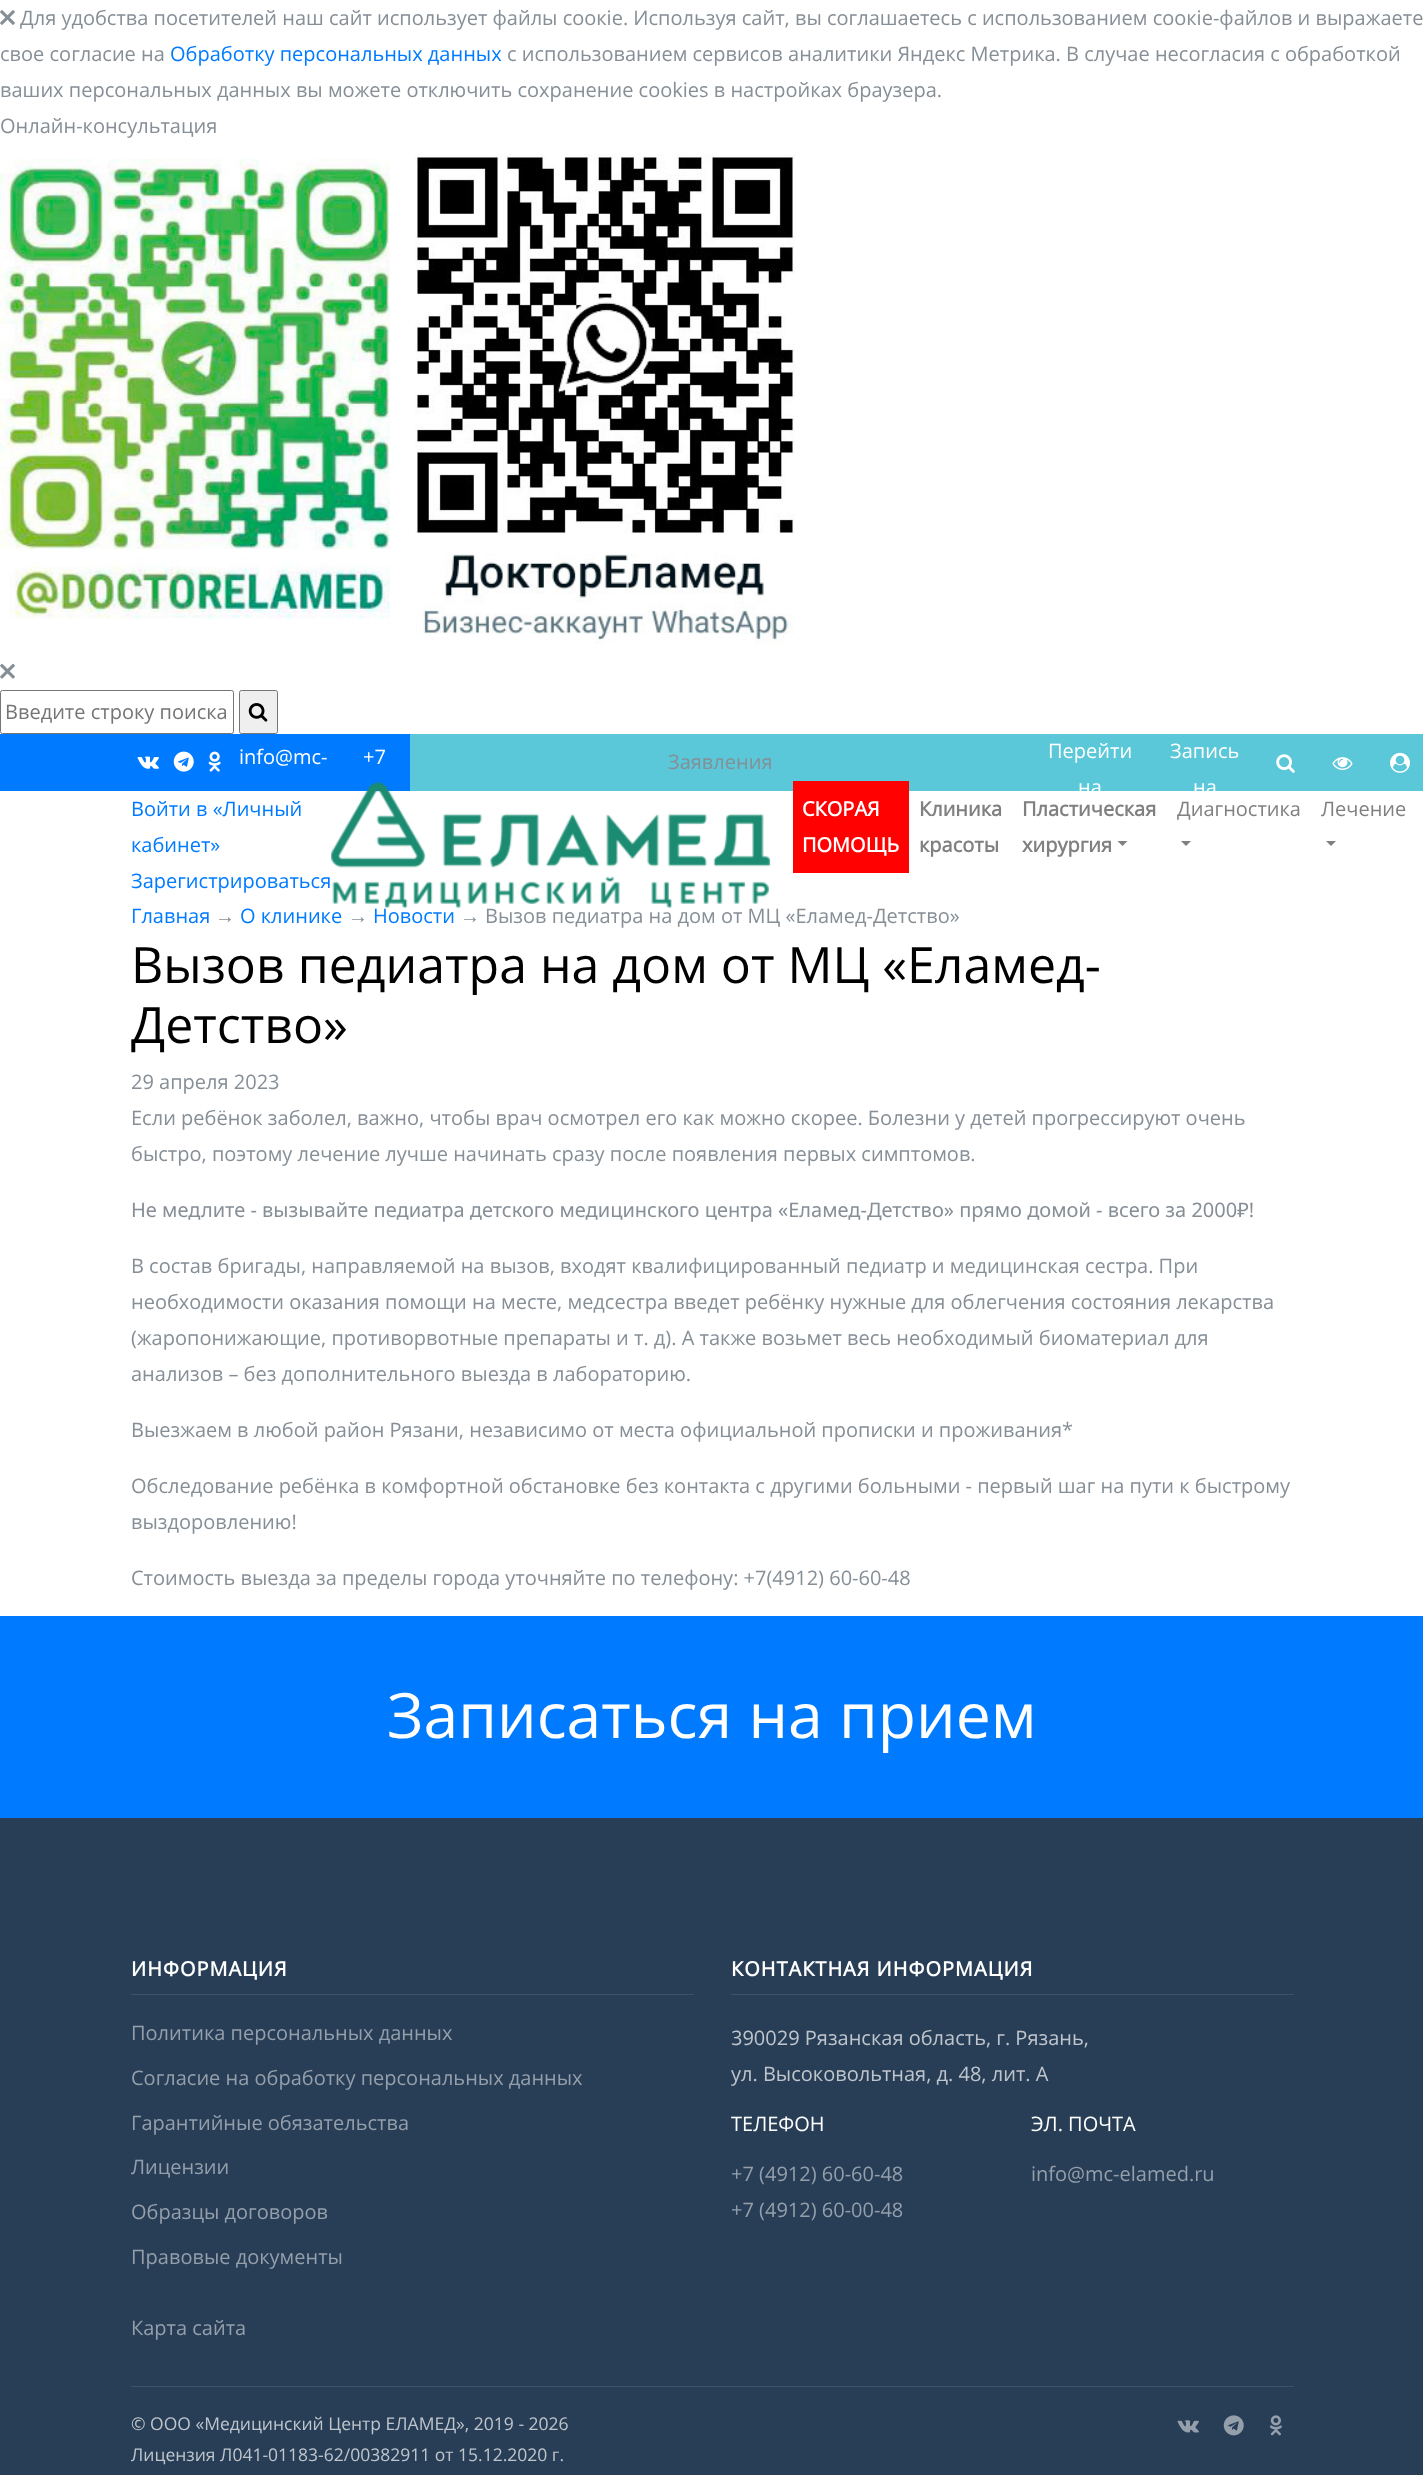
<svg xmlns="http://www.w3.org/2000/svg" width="1423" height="2475">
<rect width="100%" height="100%" fill="#fff"/>
<image x="0" y="10" width="15" height="15" href="media/1.png"/>
<text x="20" y="25" style="font-family:Open Sans;font-size:20px;fill:#868e96">Для удобства посетителей наш сайт использует файлы cоокіe. Используя сайт, вы соглашаетесь с использованием соокіе-файлов и выражаете</text>
<text x="0" y="61" style="font-family:Open Sans;font-size:20px;fill:#868e96">свое согласие на</text>
<text x="170" y="61" style="font-family:Open Sans;font-size:20px;fill:#007bff">Обработку персональных данных</text>
<text x="507" y="61" style="font-family:Open Sans;font-size:20px;fill:#868e96">с использованием сервисов аналитики Яндекс Метрика. В случае несогласия с обработкой</text>
<text x="0" y="97" style="font-family:Open Sans;font-size:20px;fill:#868e96">ваших персональных данных вы можете отключить сохранение cookies в настройках браузера.</text>
<text x="0" y="133" style="font-family:Open Sans;font-size:20px;fill:#868e96">Онлайн-консультация</text>
<image x="0" y="159" width="390" height="460" href="media/2.png"/>
<image x="415" y="154" width="380" height="490" href="media/3.png"/>
<image x="0" y="663" width="15" height="16" href="media/4.png"/>
<rect x="0.5" y="690.5" width="233" height="43" rx="2" fill="none" stroke="#767676"/>
<text x="5" y="719" style="font-family:Open Sans;font-size:20px;fill:#757575">Введите строку поиска</text>
<rect x="239.5" y="690.5" width="38" height="43" rx="2" fill="#efefef" stroke="#767676"/>
<image x="248" y="703" width="20" height="19" href="media/5.png"/>
<rect y="734" width="410" height="57" fill="#007bff"/>
<image x="137" y="756" width="22" height="13" href="media/6.png"/>
<image x="173" y="751" width="21" height="21" href="media/7.png"/>
<image x="208" y="751" width="13" height="21" href="media/8.png"/>
<text x="239" y="764" style="font-family:Open Sans;font-size:20px;fill:#fff">info@mc-</text>
<text x="363" y="764" style="font-family:Open Sans;font-size:20px;fill:#fff">+7</text>
<rect x="410" y="734" width="1013" height="57" fill="#5ac8d8"/>
<text x="668" y="769" style="font-family:Open Sans;font-size:20px;fill:#868e96">Заявления</text>
<text x="1048" y="758" style="font-family:Open Sans;font-size:20px;fill:#fff">Перейти</text>
<text x="1078" y="794" style="font-family:Open Sans;font-size:20px;fill:#fff">на</text>
<text x="1170" y="758" style="font-family:Open Sans;font-size:20px;fill:#fff">Запись</text>
<text x="1193" y="794" style="font-family:Open Sans;font-size:20px;fill:#fff">на</text>
<image x="1276" y="754" width="19" height="19" href="media/9.png"/>
<image x="1332" y="757" width="21" height="13" href="media/10.png"/>
<image x="1390" y="752" width="20" height="21" href="media/11.png"/>
<text x="131" y="816" style="font-family:Open Sans;font-size:20px;fill:#007bff">Войти в «Личный</text>
<text x="131" y="852" style="font-family:Open Sans;font-size:20px;fill:#007bff">кабинет»</text>
<text x="131" y="888" style="font-family:Open Sans;font-size:20px;fill:#007bff">Зарегистрироваться</text>
<image x="331" y="782" width="440" height="126" href="media/12.png"/>
<rect x="793" y="781" width="116" height="92" fill="#ff0101"/>
<text x="802" y="816" style="font-family:Open Sans;font-size:20px;font-weight:bold;fill:#fff">СКОРАЯ</text>
<text x="802" y="852" style="font-family:Open Sans;font-size:20px;font-weight:bold;fill:#fff">ПОМОЩЬ</text>
<text x="919" y="816" style="font-family:Open Sans;font-size:20px;font-weight:bold;fill:#808080">Клиника</text>
<text x="919" y="852" style="font-family:Open Sans;font-size:20px;font-weight:bold;fill:#808080">красоты</text>
<text x="1022" y="816" style="font-family:Open Sans;font-size:20px;font-weight:bold;fill:#808080">Пластическая</text>
<text x="1022" y="852" style="font-family:Open Sans;font-size:20px;font-weight:bold;fill:#808080">хирургия</text>
<path d="M1117.5 841h10l-5 5z" fill="#808080"/>
<text x="1177" y="816" style="font-family:Open Sans;font-size:20px;fill:#808080">Диагностика</text>
<path d="M1181 841h10l-5 5z" fill="#808080"/>
<text x="1321" y="816" style="font-family:Open Sans;font-size:20px;fill:#808080">Лечение</text>
<path d="M1326 841h10l-5 5z" fill="#808080"/>
<text x="131" y="923" style="font-family:Open Sans;font-size:20px;fill:#007bff">Главная</text>
<text x="215" y="923" style="font-family:Liberation Sans;font-size:20px;fill:#868e96">→</text>
<text x="240" y="923" style="font-family:Open Sans;font-size:20px;fill:#007bff">О клинике</text>
<text x="348" y="923" style="font-family:Liberation Sans;font-size:20px;fill:#868e96">→</text>
<text x="373" y="923" style="font-family:Open Sans;font-size:20px;fill:#007bff">Новости</text>
<text x="460" y="923" style="font-family:Liberation Sans;font-size:20px;fill:#868e96">→</text>
<text x="485" y="923" style="font-family:Open Sans;font-size:20px;fill:#868e96">Вызов педиатра на дом от МЦ «Еламед-Детство»</text>
<text x="131" y="983" style="font-family:Open Sans;font-size:50px;fill:#000">Вызов педиатра на дом от МЦ «Еламед-</text>
<text x="131" y="1043" style="font-family:Open Sans;font-size:50px;fill:#000">Детство»</text>
<text x="131" y="1089" style="font-family:Open Sans;font-size:20px;fill:#868e96">29 апреля 2023</text>
<text x="131" y="1125" style="font-family:Open Sans;font-size:20px;fill:#868e96">Если ребёнок заболел, важно, чтобы врач осмотрел его как можно скорее. Болезни у детей прогрессируют очень</text>
<text x="131" y="1161" style="font-family:Open Sans;font-size:20px;fill:#868e96">быстро, поэтому лечение лучше начинать сразу после появления первых симптомов.</text>
<text x="131" y="1217" style="font-family:Noto Sans;font-size:20px;fill:#868e96">Не медлите - вызывайте педиатра детского медицинского центра «Еламед-Детство» прямо домой - всего за 2000₽!</text>
<text x="131" y="1273" style="font-family:Open Sans;font-size:20px;fill:#868e96">В состав бригады, направляемой на вызов, входят квалифицированный педиатр и медицинская сестра. При</text>
<text x="131" y="1309" style="font-family:Open Sans;font-size:20px;fill:#868e96">необходимости оказания помощи на месте, медсестра введет ребёнку нужные для облегчения состояния лекарства</text>
<text x="131" y="1345" style="font-family:Open Sans;font-size:20px;fill:#868e96">(жаропонижающие, противорвотные препараты и т. д). А также возьмет весь необходимый биоматериал для</text>
<text x="131" y="1381" style="font-family:Open Sans;font-size:20px;fill:#868e96">анализов – без дополнительного выезда в лабораторию.</text>
<text x="131" y="1437" style="font-family:Open Sans;font-size:20px;fill:#868e96">Выезжаем в любой район Рязани, независимо от места официальной прописки и проживания*</text>
<text x="131" y="1493" style="font-family:Open Sans;font-size:20px;fill:#868e96">Обследование ребёнка в комфортной обстановке без контакта с другими больными - первый шаг на пути к быстрому</text>
<text x="131" y="1529" style="font-family:Open Sans;font-size:20px;fill:#868e96">выздоровлению!</text>
<text x="131" y="1585" style="font-family:Open Sans;font-size:20px;fill:#868e96">Стоимость выезда за пределы города уточняйте по телефону: +7(4912) 60-60-48</text>
<rect y="1616" width="1423" height="202" fill="#007bff"/>
<text x="387" y="1738" style="font-family:Open Sans;font-size:62.5px;fill:#fff">Записатьcя на прием</text>
<rect y="1818" width="1423" height="657" fill="#283e56"/>
<rect x="131" y="1994" width="563" height="1" fill="#3e5167"/>
<text x="131" y="1976" style="font-family:Open Sans;font-size:20px;font-weight:bold;letter-spacing:1px;fill:#fff">ИНФОРМАЦИЯ</text>
<text x="131" y="2040" style="font-family:Open Sans;font-size:20px;fill:#949fab">Политика персональных данных</text>
<text x="131" y="2085" style="font-family:Open Sans;font-size:20px;fill:#949fab">Согласие на обработку персональных данных</text>
<text x="131" y="2130" style="font-family:Open Sans;font-size:20px;fill:#949fab">Гарантийные обязательства</text>
<text x="131" y="2174" style="font-family:Open Sans;font-size:20px;fill:#949fab">Лицензии</text>
<text x="131" y="2219" style="font-family:Open Sans;font-size:20px;fill:#949fab">Образцы договоров</text>
<text x="131" y="2264" style="font-family:Open Sans;font-size:20px;fill:#949fab">Правовые документы</text>
<rect x="731" y="1994" width="563" height="1" fill="#3e5167"/>
<text x="731" y="1976" style="font-family:Open Sans;font-size:20px;font-weight:bold;letter-spacing:1px;fill:#fff">КОНТАКТНАЯ ИНФОРМАЦИЯ</text>
<text x="731" y="2045" style="font-family:Open Sans;font-size:20px;fill:#bfc5cc">390029 Рязанская область, г. Рязань,</text>
<text x="731" y="2081" style="font-family:Open Sans;font-size:20px;fill:#bfc5cc">ул. Высоковольтная, д. 48, лит. А</text>
<text x="731" y="2131" style="font-family:Open Sans;font-size:20px;fill:#fff">ТЕЛЕФОН</text>
<text x="731" y="2181" style="font-family:Open Sans;font-size:20px;fill:#949fab">+7 (4912) 60-60-48</text>
<text x="731" y="2217" style="font-family:Open Sans;font-size:20px;fill:#949fab">+7 (4912) 60-00-48</text>
<text x="1031" y="2131" style="font-family:Open Sans;font-size:20px;fill:#fff">ЭЛ. ПОЧТА</text>
<text x="1031" y="2181" style="font-family:Open Sans;font-size:20px;fill:#949fab">info@mc-elamed.ru</text>
<text x="131" y="2335" style="font-family:Open Sans;font-size:20px;fill:#949fab">Карта сайта</text>
<rect x="131" y="2386" width="1163" height="1" fill="#3e5167"/>
<text x="131" y="2430" style="font-family:Open Sans;font-size:17.5px;fill:#bfc5cc">© ООО «Медицинский Центр ЕЛАМЕД», 2019 - 2026</text>
<text x="131" y="2461" style="font-family:Open Sans;font-size:17.5px;fill:#bfc5cc">Лицензия Л041-01183-62/00382911 от 15.12.2020 г.</text>
<image x="1177" y="2420" width="22" height="13" href="media/13.png"/>
<image x="1223" y="2415" width="21" height="21" href="media/14.png"/>
<image x="1269" y="2415" width="13" height="21" href="media/15.png"/>
</svg>
